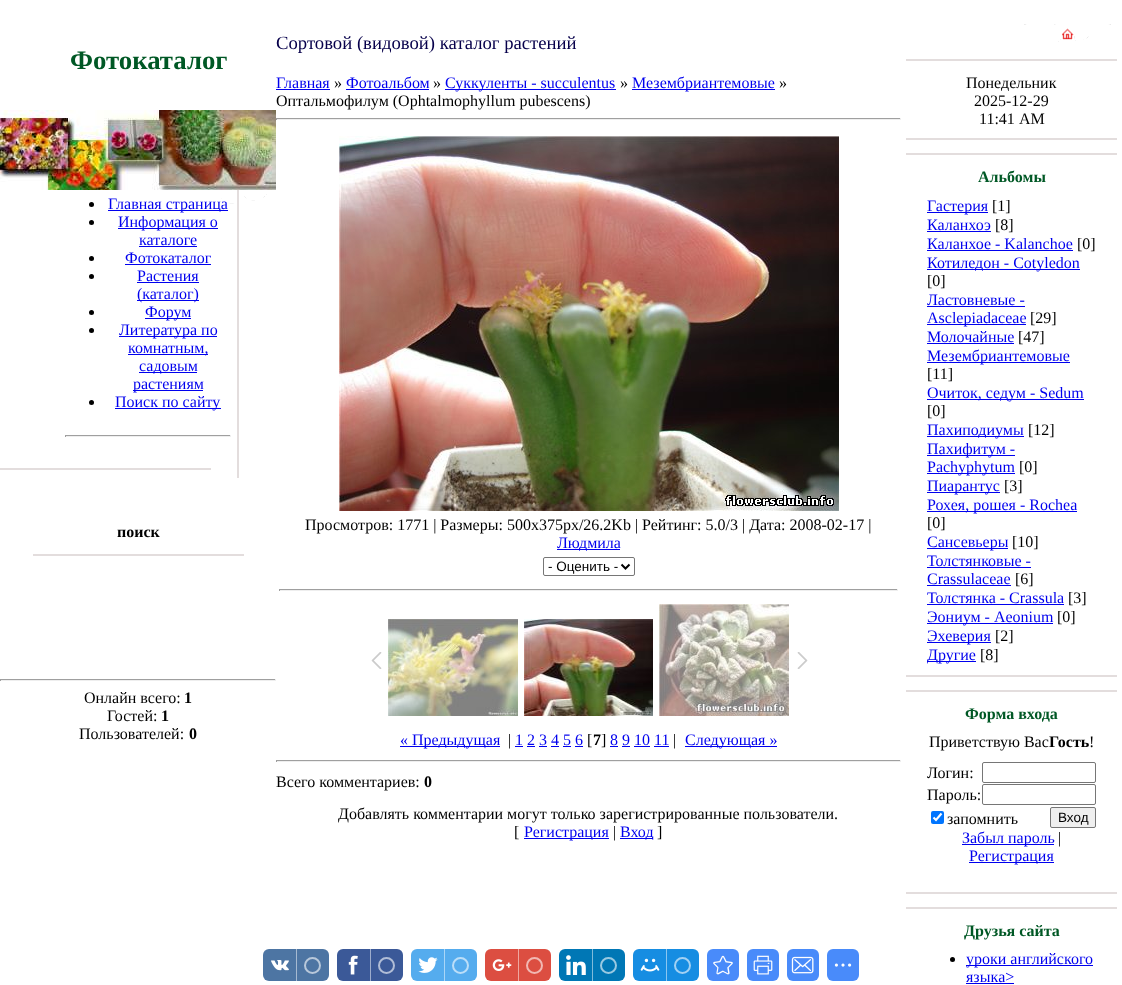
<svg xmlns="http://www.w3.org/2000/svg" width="1122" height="985">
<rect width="100%" height="100%" fill="#fff"/>
<image x="1024" y="24" width="87" height="18" href="media/1.png"/>
<text x="276" y="49" style="font-family:Liberation Serif;font-size:18.7px;fill:#07004b">Сортовой (видовой) каталог растений</text>
<text x="70" y="69" style="font-family:Liberation Serif;font-size:26.75px;font-weight:bold;fill:#005825">Фотокаталог</text>
<rect x="237" y="190" width="2" height="288" fill="#e3dddd"/>
<image x="0" y="110" width="276" height="80" href="media/2.png"/>
<image x="221" y="194" width="46" height="10" href="media/3.png"/>
<circle cx="91.5" cy="204.5" r="2.5" fill="#000"/>
<rect x="108" y="210" width="120" height="1" fill="#00e"/>
<text x="108" y="209" style="font-family:Liberation Serif;font-size:16px;fill:#00e">Главная страница</text>
<circle cx="91.5" cy="222.5" r="2.5" fill="#000"/>
<rect x="118" y="228" width="100" height="1" fill="#00e"/>
<text x="118" y="227" style="font-family:Liberation Serif;font-size:16px;fill:#00e">Информация о</text>
<text x="139" y="245" style="font-family:Liberation Serif;font-size:16px;fill:#00e">каталоге</text>
<rect x="139" y="246" width="58" height="1" fill="#00e"/>
<circle cx="91.5" cy="258.5" r="2.5" fill="#000"/>
<text x="125" y="263" style="font-family:Liberation Serif;font-size:16px;fill:#00e">Фотокаталог</text>
<rect x="125" y="264" width="86" height="1" fill="#00e"/>
<circle cx="91.5" cy="276.5" r="2.5" fill="#000"/>
<text x="137" y="281" style="font-family:Liberation Serif;font-size:16px;fill:#00e">Растения</text>
<rect x="137" y="282" width="62" height="1" fill="#00e"/>
<rect x="137" y="300" width="62" height="1" fill="#00e"/>
<text x="137" y="299" style="font-family:Liberation Serif;font-size:16px;fill:#00e">(каталог)</text>
<circle cx="91.5" cy="312.5" r="2.5" fill="#000"/>
<rect x="145" y="318" width="46" height="1" fill="#00e"/>
<text x="145" y="317" style="font-family:Liberation Serif;font-size:16px;fill:#00e">Форум</text>
<circle cx="91.5" cy="330.5" r="2.5" fill="#000"/>
<rect x="119" y="336" width="98" height="1" fill="#00e"/>
<text x="119" y="335" style="font-family:Liberation Serif;font-size:16px;fill:#00e">Литература по</text>
<rect x="128" y="354" width="80" height="1" fill="#00e"/>
<text x="128" y="353" style="font-family:Liberation Serif;font-size:16px;fill:#00e">комнатным,</text>
<rect x="139" y="372" width="58" height="1" fill="#00e"/>
<text x="139" y="371" style="font-family:Liberation Serif;font-size:16px;fill:#00e">садовым</text>
<rect x="133" y="390" width="70" height="1" fill="#00e"/>
<text x="133" y="389" style="font-family:Liberation Serif;font-size:16px;fill:#00e">растениям</text>
<circle cx="91.5" cy="402.5" r="2.5" fill="#000"/>
<rect x="115" y="408" width="106" height="1" fill="#00e"/>
<text x="115" y="407" style="font-family:Liberation Serif;font-size:16px;fill:#00e">Поиск по сайту</text>
<rect x="65" y="435" width="166" height="1" fill="#9f9f9f"/>
<rect x="230" y="435" width="1" height="2" fill="#eee"/>
<rect x="65" y="436" width="166" height="1" fill="#eee"/>
<rect x="65" y="435" width="1" height="2" fill="#9f9f9f"/>
<rect y="468" width="211" height="2" fill="#e3dddd"/>
<text x="117" y="537" style="font-family:Liberation Serif;font-size:16px;font-weight:bold;fill:#000">поиск</text>
<rect x="33" y="554" width="211" height="2" fill="#e3dddd"/>
<rect y="679" width="276" height="1" fill="#9f9f9f"/>
<rect x="275" y="679" width="1" height="2" fill="#eee"/>
<rect y="680" width="276" height="1" fill="#eee"/>
<rect y="679" width="1" height="2" fill="#9f9f9f"/>
<text x="84" y="703" style="font-family:Liberation Serif;font-size:16px;fill:#000">Онлайн всего:</text>
<text x="184" y="703" style="font-family:Liberation Serif;font-size:16px;font-weight:bold;fill:#000">1</text>
<text x="107" y="721" style="font-family:Liberation Serif;font-size:16px;fill:#000">Гостей:</text>
<text x="161" y="721" style="font-family:Liberation Serif;font-size:16px;font-weight:bold;fill:#000">1</text>
<text x="79" y="739" style="font-family:Liberation Serif;font-size:16px;fill:#000">Пользователей:</text>
<text x="189" y="739" style="font-family:Liberation Serif;font-size:16px;font-weight:bold;fill:#000">0</text>
<text x="276" y="88" style="font-family:Liberation Serif;font-size:16px;fill:#00e">Главная</text>
<rect x="276" y="89" width="54" height="1" fill="#00e"/>
<text x="334" y="88" style="font-family:Liberation Serif;font-size:16px;fill:#000">»</text>
<text x="346" y="88" style="font-family:Liberation Serif;font-size:16px;fill:#00e">Фотоальбом</text>
<rect x="346" y="89" width="83" height="1" fill="#00e"/>
<text x="433" y="88" style="font-family:Liberation Serif;font-size:16px;fill:#000">»</text>
<rect x="445" y="89" width="171" height="1" fill="#00e"/>
<text x="445" y="88" style="font-family:Liberation Serif;font-size:16px;fill:#00e">Суккуленты - succulentus</text>
<text x="620" y="88" style="font-family:Liberation Serif;font-size:16px;fill:#000">»</text>
<rect x="632" y="89" width="143" height="1" fill="#00e"/>
<text x="632" y="88" style="font-family:Liberation Serif;font-size:16px;fill:#00e">Мезембриантемовые</text>
<text x="779" y="88" style="font-family:Liberation Serif;font-size:16px;fill:#000">»</text>
<text x="276" y="106" style="font-family:Liberation Serif;font-size:16px;fill:#000">Оптальмофилум (Ophtalmophyllum pubescens)</text>
<rect x="276" y="118" width="625" height="1" fill="#9f9f9f"/>
<rect x="900" y="118" width="1" height="2" fill="#eee"/>
<rect x="276" y="119" width="625" height="1" fill="#eee"/>
<rect x="276" y="118" width="1" height="2" fill="#9f9f9f"/>
<image x="339" y="136" width="500" height="375" href="media/4.png"/>
<text x="305" y="530" style="font-family:Liberation Serif;font-size:16px;fill:#000">Просмотров: 1771 | Размеры: 500x375px/26.2Kb | Рейтинг: 5.0/3 | Дата: 2008-02-17 |</text>
<rect x="557" y="549" width="63" height="1" fill="#00e"/>
<text x="557" y="548" style="font-family:Liberation Serif;font-size:16px;fill:#00e">Людмила</text>
<rect x="543.5" y="557.5" width="91" height="18" rx="1.5" fill="none" stroke="#767676"/>
<path d="M621.5 564.5l4 4l4-4" fill="none" stroke="#000" stroke-width="2"/>
<text x="548" y="571" style="font-family:Liberation Sans;font-size:13.5px;fill:#000">- Оценить -</text>
<rect x="279" y="589" width="619" height="1" fill="#9f9f9f"/>
<rect x="897" y="589" width="1" height="2" fill="#eee"/>
<rect x="279" y="590" width="619" height="1" fill="#eee"/>
<rect x="279" y="589" width="1" height="2" fill="#9f9f9f"/>
<image x="371" y="652" width="11" height="17" href="media/5.png"/>
<image x="388" y="619" width="130" height="97" href="media/6.png"/>
<image x="524" y="619" width="129" height="97" href="media/7.png"/>
<image x="659" y="604" width="130" height="112" href="media/8.png"/>
<image x="797" y="652" width="11" height="17" href="media/9.png"/>
<rect x="400" y="746" width="100" height="1" fill="#00e"/>
<text x="400" y="745" style="font-family:Liberation Serif;font-size:16px;fill:#00e">« Предыдущая</text>
<text x="508" y="745" style="font-family:Liberation Serif;font-size:16px;fill:#000">|</text>
<text x="515" y="745" style="font-family:Liberation Serif;font-size:16px;fill:#00e">1 2 3 4 5 6</text>
<rect x="515" y="746" width="8" height="1" fill="#00e"/>
<text x="587" y="745" style="font-family:Liberation Serif;font-size:16px;fill:#000">[</text>
<text x="593" y="745" style="font-family:Liberation Serif;font-size:16px;font-weight:bold;fill:#000">7</text>
<text x="601" y="745" style="font-family:Liberation Serif;font-size:16px;fill:#000">]</text>
<text x="610" y="745" style="font-family:Liberation Serif;font-size:16px;fill:#00e">8 9 10 11</text>
<rect x="610" y="746" width="8" height="1" fill="#00e"/>
<text x="673" y="745" style="font-family:Liberation Serif;font-size:16px;fill:#000">|</text>
<rect x="685" y="746" width="92" height="1" fill="#00e"/>
<text x="685" y="745" style="font-family:Liberation Serif;font-size:16px;fill:#00e">Следующая »</text>
<rect x="527" y="746" width="8" height="1" fill="#00e"/>
<rect x="539" y="746" width="8" height="1" fill="#00e"/>
<rect x="551" y="746" width="8" height="1" fill="#00e"/>
<rect x="563" y="746" width="8" height="1" fill="#00e"/>
<rect x="575" y="746" width="8" height="1" fill="#00e"/>
<rect x="622" y="746" width="8" height="1" fill="#00e"/>
<rect x="634" y="746" width="16" height="1" fill="#00e"/>
<rect x="654" y="746" width="15" height="1" fill="#00e"/>
<rect x="276" y="760" width="625" height="1" fill="#9f9f9f"/>
<rect x="900" y="760" width="1" height="2" fill="#eee"/>
<rect x="276" y="761" width="625" height="1" fill="#eee"/>
<rect x="276" y="760" width="1" height="2" fill="#9f9f9f"/>
<text x="276" y="787" style="font-family:Liberation Serif;font-size:16px;fill:#000">Всего комментариев:</text>
<text x="424" y="787" style="font-family:Liberation Serif;font-size:16px;font-weight:bold;fill:#000">0</text>
<text x="338" y="819" style="font-family:Liberation Serif;font-size:16px;fill:#000">Добавлять комментарии могут только зарегистрированные пользователи.</text>
<text x="514" y="837" style="font-family:Liberation Serif;font-size:16px;fill:#000">[</text>
<rect x="524" y="838" width="85" height="1" fill="#00e"/>
<text x="524" y="837" style="font-family:Liberation Serif;font-size:16px;fill:#00e">Регистрация</text>
<text x="613" y="837" style="font-family:Liberation Serif;font-size:16px;fill:#000">|</text>
<rect x="620" y="838" width="33" height="1" fill="#00e"/>
<text x="620" y="837" style="font-family:Liberation Serif;font-size:16px;fill:#00e">Вход</text>
<text x="657" y="837" style="font-family:Liberation Serif;font-size:16px;fill:#000">]</text>
<rect x="906" y="59" width="211" height="2" fill="#e3dddd"/>
<text x="966" y="88" style="font-family:Liberation Serif;font-size:16px;fill:#000">Понедельник</text>
<text x="974" y="106" style="font-family:Liberation Serif;font-size:16px;fill:#000">2025-12-29</text>
<text x="979" y="124" word-spacing="1" style="font-family:Liberation Serif;font-size:16px;fill:#000">11:41 AM</text>
<rect x="906" y="138" width="211" height="2" fill="#e3dddd"/>
<rect x="906" y="153" width="211" height="2" fill="#e3dddd"/>
<text x="978" y="182" style="font-family:Liberation Serif;font-size:16px;font-weight:bold;fill:#005825">Альбомы</text>
<rect x="927" y="212" width="61" height="1" fill="#00e"/>
<text x="927" y="211" style="font-family:Liberation Serif;font-size:16px;fill:#00e">Гастерия</text>
<text x="992" y="211" style="font-family:Liberation Serif;font-size:16px;fill:#000">[1]</text>
<text x="927" y="230" style="font-family:Liberation Serif;font-size:16px;fill:#00e">Каланхоэ</text>
<rect x="927" y="231" width="64" height="1" fill="#00e"/>
<text x="995" y="230" style="font-family:Liberation Serif;font-size:16px;fill:#000">[8]</text>
<text x="927" y="249" style="font-family:Liberation Serif;font-size:16px;fill:#00e">Каланхое - Kalanchoe</text>
<rect x="927" y="250" width="146" height="1" fill="#00e"/>
<text x="1077" y="249" style="font-family:Liberation Serif;font-size:16px;fill:#000">[0]</text>
<rect x="927" y="269" width="153" height="1" fill="#00e"/>
<text x="927" y="268" style="font-family:Liberation Serif;font-size:16px;fill:#00e">Котиледон - Cotyledon</text>
<text x="927" y="286" style="font-family:Liberation Serif;font-size:16px;fill:#000">[0]</text>
<text x="927" y="305" style="font-family:Liberation Serif;font-size:16px;fill:#00e">Ластовневые -</text>
<rect x="927" y="306" width="98" height="1" fill="#00e"/>
<rect x="927" y="324" width="99" height="1" fill="#00e"/>
<text x="927" y="323" style="font-family:Liberation Serif;font-size:16px;fill:#00e">Asclepiadaceae</text>
<text x="1030" y="323" style="font-family:Liberation Serif;font-size:16px;fill:#000">[29]</text>
<text x="927" y="342" style="font-family:Liberation Serif;font-size:16px;fill:#00e">Молочайные</text>
<rect x="927" y="343" width="87" height="1" fill="#00e"/>
<text x="1018" y="342" style="font-family:Liberation Serif;font-size:16px;fill:#000">[47]</text>
<rect x="927" y="362" width="143" height="1" fill="#00e"/>
<text x="927" y="361" style="font-family:Liberation Serif;font-size:16px;fill:#00e">Мезембриантемовые</text>
<text x="927" y="379" style="font-family:Liberation Serif;font-size:16px;fill:#000">[11]</text>
<rect x="927" y="399" width="157" height="1" fill="#00e"/>
<text x="927" y="398" style="font-family:Liberation Serif;font-size:16px;fill:#00e">Очиток, седум - Sedum</text>
<text x="927" y="416" style="font-family:Liberation Serif;font-size:16px;fill:#000">[0]</text>
<rect x="927" y="436" width="97" height="1" fill="#00e"/>
<text x="927" y="435" style="font-family:Liberation Serif;font-size:16px;fill:#00e">Пахиподиумы</text>
<text x="1028" y="435" style="font-family:Liberation Serif;font-size:16px;fill:#000">[12]</text>
<rect x="927" y="455" width="88" height="1" fill="#00e"/>
<text x="927" y="454" style="font-family:Liberation Serif;font-size:16px;fill:#00e">Пахифитум -</text>
<rect x="927" y="473" width="88" height="1" fill="#00e"/>
<text x="927" y="472" style="font-family:Liberation Serif;font-size:16px;fill:#00e">Pachyphytum</text>
<text x="1019" y="472" style="font-family:Liberation Serif;font-size:16px;fill:#000">[0]</text>
<rect x="927" y="492" width="73" height="1" fill="#00e"/>
<text x="927" y="491" style="font-family:Liberation Serif;font-size:16px;fill:#00e">Пиарантус</text>
<text x="1004" y="491" style="font-family:Liberation Serif;font-size:16px;fill:#000">[3]</text>
<rect x="927" y="511" width="150" height="1" fill="#00e"/>
<text x="927" y="510" style="font-family:Liberation Serif;font-size:16px;fill:#00e">Рохея, рошея - Rochea</text>
<text x="927" y="528" style="font-family:Liberation Serif;font-size:16px;fill:#000">[0]</text>
<rect x="927" y="548" width="81" height="1" fill="#00e"/>
<text x="927" y="547" style="font-family:Liberation Serif;font-size:16px;fill:#00e">Сансевьеры</text>
<text x="1012" y="547" style="font-family:Liberation Serif;font-size:16px;fill:#000">[10]</text>
<text x="927" y="566" style="font-family:Liberation Serif;font-size:16px;fill:#00e">Толстянковые -</text>
<rect x="927" y="567" width="104" height="1" fill="#00e"/>
<text x="927" y="584" style="font-family:Liberation Serif;font-size:16px;fill:#00e">Crassulaceae</text>
<rect x="927" y="585" width="84" height="1" fill="#00e"/>
<text x="1015" y="584" style="font-family:Liberation Serif;font-size:16px;fill:#000">[6]</text>
<text x="927" y="603" style="font-family:Liberation Serif;font-size:16px;fill:#00e">Толстянка - Crassula</text>
<rect x="927" y="604" width="137" height="1" fill="#00e"/>
<text x="1068" y="603" style="font-family:Liberation Serif;font-size:16px;fill:#000">[3]</text>
<rect x="927" y="623" width="126" height="1" fill="#00e"/>
<text x="927" y="622" style="font-family:Liberation Serif;font-size:16px;fill:#00e">Эониум - Aeonium</text>
<text x="1057" y="622" style="font-family:Liberation Serif;font-size:16px;fill:#000">[0]</text>
<rect x="927" y="642" width="64" height="1" fill="#00e"/>
<text x="927" y="641" style="font-family:Liberation Serif;font-size:16px;fill:#00e">Эхеверия</text>
<text x="995" y="641" style="font-family:Liberation Serif;font-size:16px;fill:#000">[2]</text>
<rect x="927" y="661" width="49" height="1" fill="#00e"/>
<text x="927" y="660" style="font-family:Liberation Serif;font-size:16px;fill:#00e">Другие</text>
<text x="980" y="660" style="font-family:Liberation Serif;font-size:16px;fill:#000">[8]</text>
<rect x="906" y="675" width="211" height="2" fill="#e3dddd"/>
<rect x="906" y="690" width="211" height="2" fill="#e3dddd"/>
<text x="965" y="719" style="font-family:Liberation Serif;font-size:16px;font-weight:bold;fill:#005825">Форма входа</text>
<text x="929" y="747" style="font-family:Liberation Serif;font-size:16px;fill:#000">Приветствую Вас</text>
<text x="1049" y="747" style="font-family:Liberation Serif;font-size:16px;font-weight:bold;fill:#000">Гость</text>
<text x="1089" y="747" style="font-family:Liberation Serif;font-size:16px;fill:#000">!</text>
<text x="927" y="778" style="font-family:Liberation Serif;font-size:16px;fill:#000">Логин:</text>
<rect x="982.5" y="762.5" width="113" height="20" rx="1.5" fill="none" stroke="#767676"/>
<text x="927" y="800" style="font-family:Liberation Serif;font-size:16px;fill:#000">Пароль:</text>
<rect x="982.5" y="784.5" width="113" height="20" rx="1.5" fill="none" stroke="#767676"/>
<rect x="931" y="811" width="13" height="13" rx="2" fill="#0075ff"/>
<path d="M933.5 817.5l2.5 2.5l5.5-6.5" fill="none" stroke="#fff" stroke-width="2.1"/>
<text x="947" y="824" style="font-family:Liberation Serif;font-size:16px;fill:#000">запомнить</text>
<rect x="1050.5" y="807.5" width="45" height="20" rx="1.5" fill="#efefef" stroke="#767676"/>
<text x="1058" y="822" style="font-family:Liberation Sans;font-size:13.5px;fill:#000">Вход</text>
<rect x="962" y="844" width="92" height="1" fill="#00e"/>
<text x="962" y="843" style="font-family:Liberation Serif;font-size:16px;fill:#00e">Забыл пароль</text>
<text x="1058" y="843" style="font-family:Liberation Serif;font-size:16px;fill:#000">|</text>
<rect x="969" y="862" width="85" height="1" fill="#00e"/>
<text x="969" y="861" style="font-family:Liberation Serif;font-size:16px;fill:#00e">Регистрация</text>
<rect x="906" y="892" width="211" height="2" fill="#e3dddd"/>
<rect x="906" y="907" width="211" height="2" fill="#e3dddd"/>
<text x="964" y="936" style="font-family:Liberation Serif;font-size:16px;font-weight:bold;fill:#005825">Друзья сайта</text>
<circle cx="952.5" cy="959.5" r="2.5" fill="#000"/>
<rect x="966" y="965" width="127" height="1" fill="#00e"/>
<text x="966" y="964" style="font-family:Liberation Serif;font-size:16px;fill:#00e">уроки английского</text>
<text x="966" y="982" style="font-family:Liberation Serif;font-size:16px;fill:#00e">языкa&gt;</text>
<rect x="966" y="983" width="48" height="1" fill="#00e"/>
<rect x="263" y="949" width="66" height="32" rx="6" fill="#4d75a3"/>
<image x="271" y="960" width="18" height="11" href="media/10.png"/>
<rect x="296" y="949" width="1" height="32" fill="#a6bad1"/>
<circle cx="312.5" cy="965.5" r="7.5" fill="none" stroke="#b8c8da" stroke-width="2"/>
<rect x="337" y="949" width="66" height="32" rx="6" fill="#3b5998"/>
<image x="348" y="955" width="10" height="20" href="media/11.png"/>
<rect x="370" y="949" width="1" height="32" fill="#9daccc"/>
<circle cx="386.5" cy="965.5" r="7.5" fill="none" stroke="#b1bdd6" stroke-width="2"/>
<rect x="411" y="949" width="66" height="32" rx="6" fill="#55acee"/>
<image x="418" y="957" width="20" height="16" href="media/12.png"/>
<rect x="444" y="949" width="1" height="32" fill="#aad6f7"/>
<circle cx="460.5" cy="965.5" r="7.5" fill="none" stroke="#bbdef8" stroke-width="2"/>
<rect x="485" y="949" width="66" height="32" rx="6" fill="#dc4e41"/>
<image x="492" y="959" width="20" height="12" href="media/13.png"/>
<rect x="518" y="949" width="1" height="32" fill="#eea7a0"/>
<circle cx="534.5" cy="965.5" r="7.5" fill="none" stroke="#f1b8b3" stroke-width="2"/>
<rect x="559" y="949" width="66" height="32" rx="6" fill="#0077b5"/>
<image x="566" y="955" width="20" height="20" href="media/14.png"/>
<rect x="592" y="949" width="1" height="32" fill="#80bbda"/>
<circle cx="608.5" cy="965.5" r="7.5" fill="none" stroke="#99c9e1" stroke-width="2"/>
<rect x="633" y="949" width="66" height="32" rx="6" fill="#168de2"/>
<image x="640" y="958" width="20" height="14" href="media/15.png"/>
<rect x="666" y="949" width="1" height="32" fill="#8bc6f1"/>
<circle cx="682.5" cy="965.5" r="7.5" fill="none" stroke="#a2d1f3" stroke-width="2"/>
<rect x="707" y="949" width="32" height="32" rx="6" fill="#498bfa"/>
<image x="713" y="955" width="20" height="20" href="media/16.png"/>
<rect x="747" y="949" width="32" height="32" rx="6" fill="#498bfa"/>
<image x="753" y="955" width="20" height="20" href="media/17.png"/>
<rect x="787" y="949" width="32" height="32" rx="6" fill="#498bfa"/>
<image x="791" y="956" width="23" height="18" href="media/18.png"/>
<rect x="827" y="949" width="32" height="32" rx="6" fill="#498bfa"/>
<image x="834" y="963" width="18" height="4" href="media/19.png"/>
</svg>
